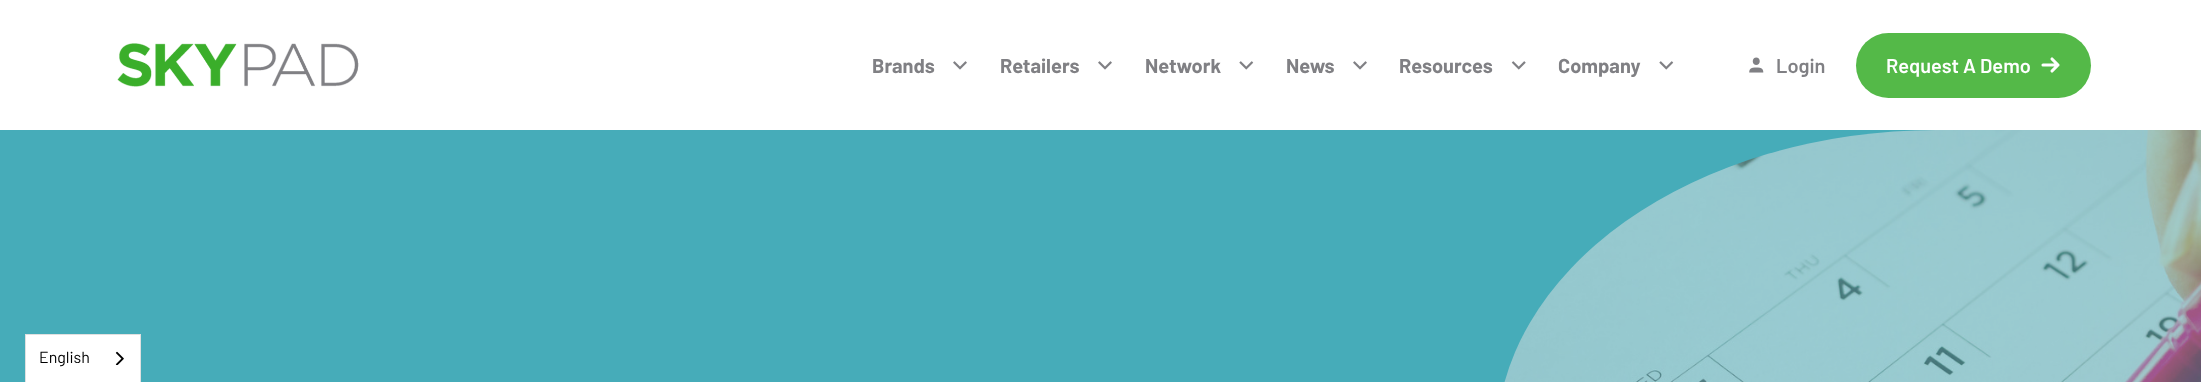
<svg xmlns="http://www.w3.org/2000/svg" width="2201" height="382">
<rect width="100%" height="100%" fill="#fff"/>
<image x="117" y="43" width="242" height="44" href="media/1.png"/>
<text x="872" y="73" style="font-family:Barlow;font-size:20px;font-weight:bold;fill:#808084">Brands</text>
<image x="953" y="61" width="14" height="9" href="media/2.png"/>
<text x="1000" y="73" style="font-family:Barlow;font-size:20px;font-weight:bold;fill:#808084">Retailers</text>
<image x="1098" y="61" width="14" height="9" href="media/2.png"/>
<text x="1145" y="73" style="font-family:Barlow;font-size:20px;font-weight:bold;fill:#808084">Network</text>
<image x="1239" y="61" width="15" height="9" href="media/3.png"/>
<text x="1286" y="73" style="font-family:Barlow;font-size:20px;font-weight:bold;fill:#808084">News</text>
<image x="1353" y="61" width="14" height="9" href="media/2.png"/>
<text x="1399" y="73" style="font-family:Barlow;font-size:20px;font-weight:bold;fill:#808084">Resources</text>
<image x="1511" y="61" width="15" height="9" href="media/4.png"/>
<text x="1558" y="73" style="font-family:Barlow;font-size:20px;font-weight:bold;fill:#808084">Company</text>
<image x="1659" y="61" width="15" height="9" href="media/3.png"/>
<image x="1749" y="57" width="15" height="16" href="media/5.png"/>
<text x="1776" y="73" style="font-family:Barlow;font-size:20px;font-weight:600;fill:#808084">Login</text>
<rect x="1856" y="33" width="235" height="65" rx="32.5" fill="#54b948"/>
<text x="1886" y="73" style="font-family:Barlow;font-size:20px;font-weight:600;fill:#fff">Request A Demo</text>
<path d="M2043 65h15m0 0l-6-6m6 6l-6 6" fill="none" stroke="#fff" stroke-width="3.1" stroke-linecap="round"/>
<rect y="130" width="2201" height="252" fill="#46acb9"/>
<image x="1504" y="130" width="697" height="252" href="media/6.png"/>
<rect x="25.5" y="334.5" width="115" height="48" fill="#fff" stroke="#e0e0e0"/>
<text x="39" y="363" style="font-family:Barlow;font-size:16px;fill:#000">English</text>
<image x="115" y="351" width="9" height="14" href="media/7.png"/>
</svg>
